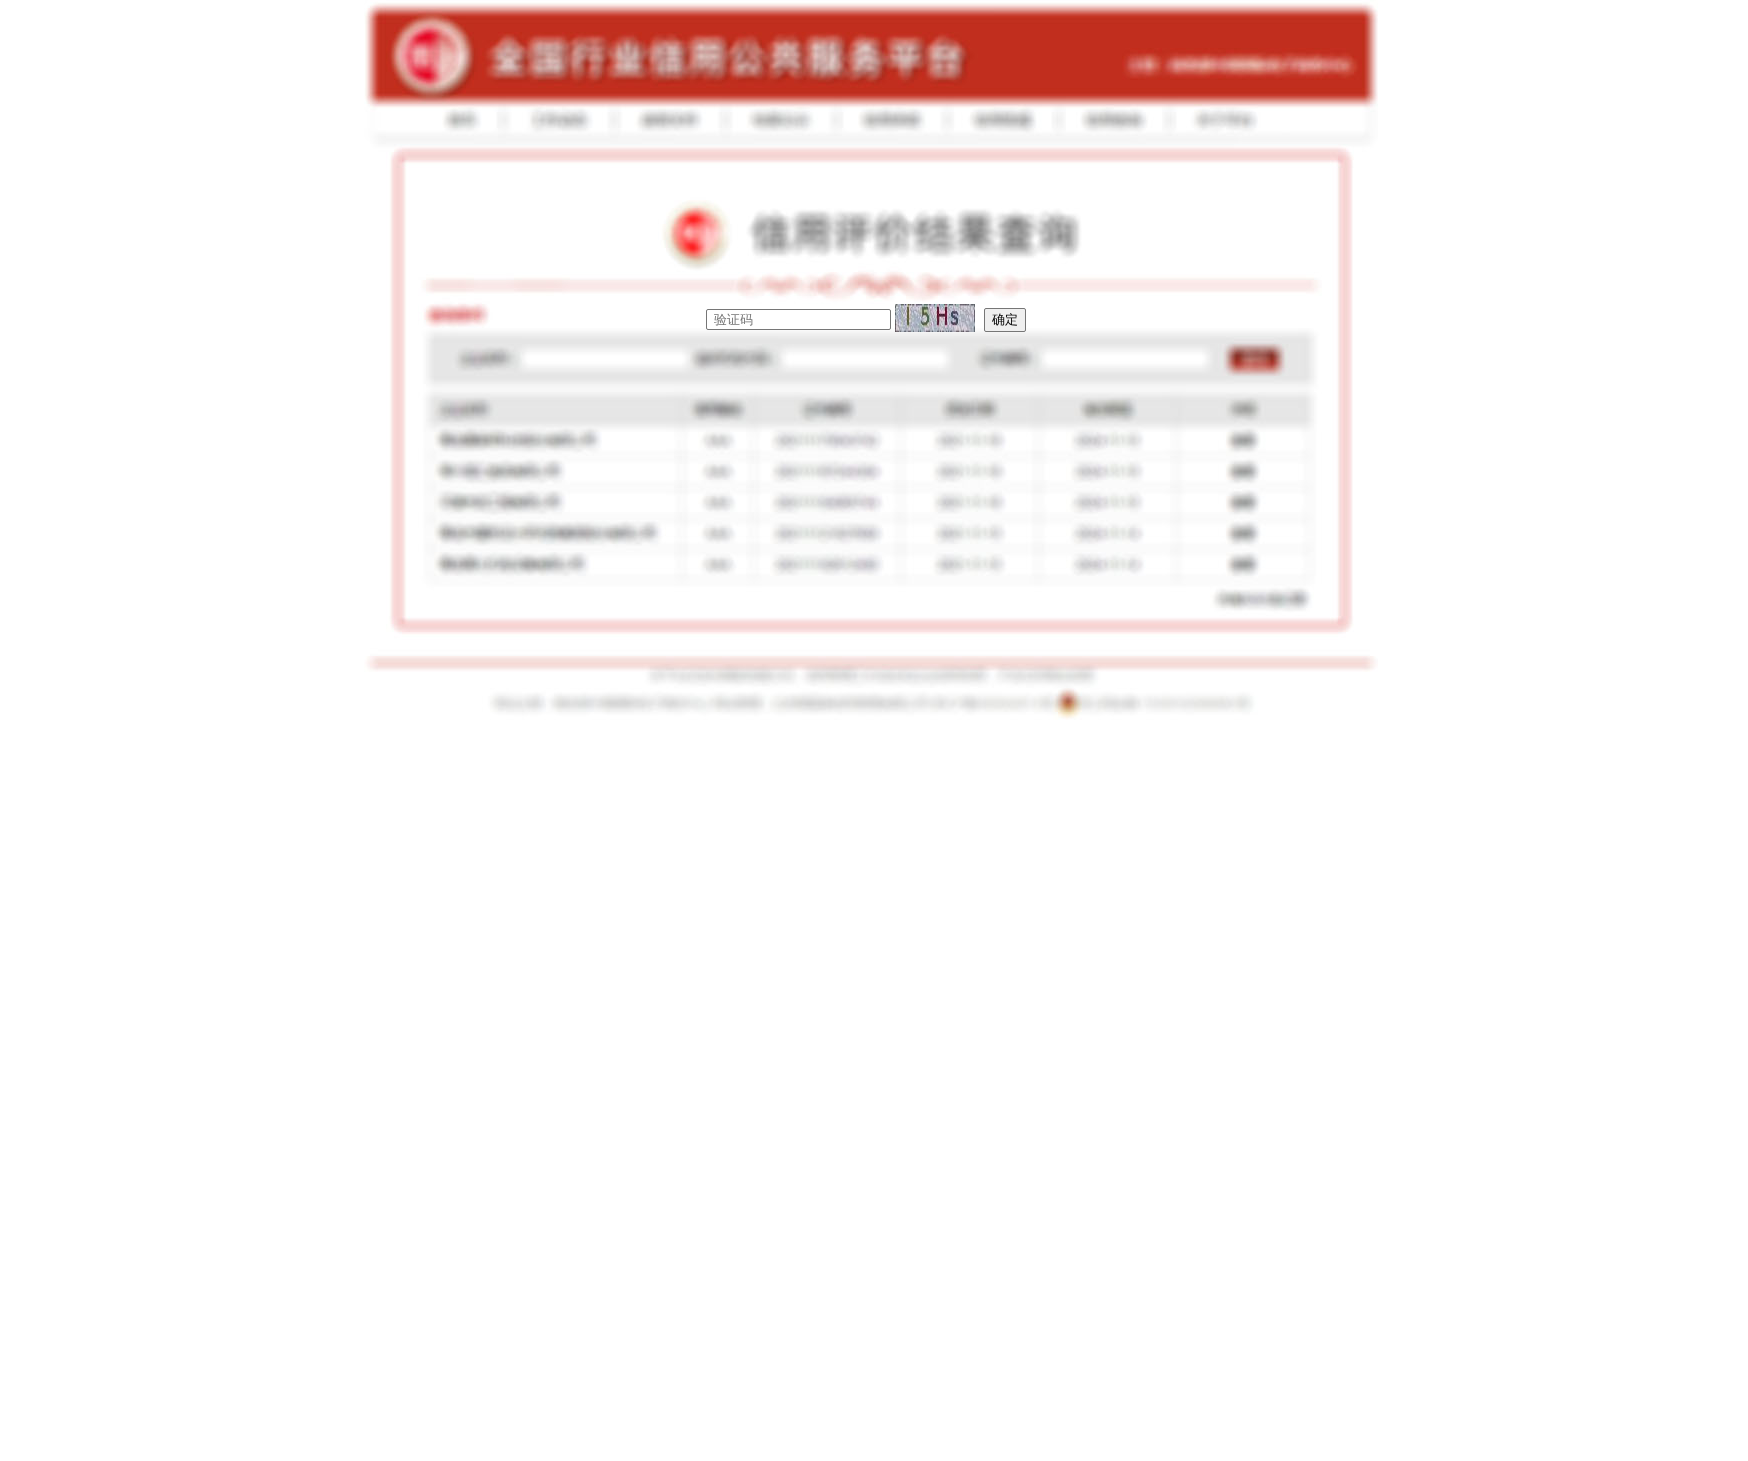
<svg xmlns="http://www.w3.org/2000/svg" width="1748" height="1461">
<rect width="100%" height="100%" fill="#fff"/>
<image x="364" y="0" width="1014" height="720" href="media/1.png"/>
<rect x="706.5" y="309.5" width="184" height="20" rx="1.5" fill="#fff" stroke="#767676"/>
<text x="714" y="324" style="font-family:WenQuanYi Zen Hei;font-size:13px;font-weight:500;fill:#757575">验证码</text>
<image x="895" y="304" width="80" height="28" href="media/2.png"/>
<rect x="984.5" y="308.5" width="41" height="23" rx="1.5" fill="#efefef" stroke="#767676"/>
<text x="992" y="324" style="font-family:WenQuanYi Zen Hei;font-size:13px;font-weight:500;fill:#000">确定</text>
</svg>
